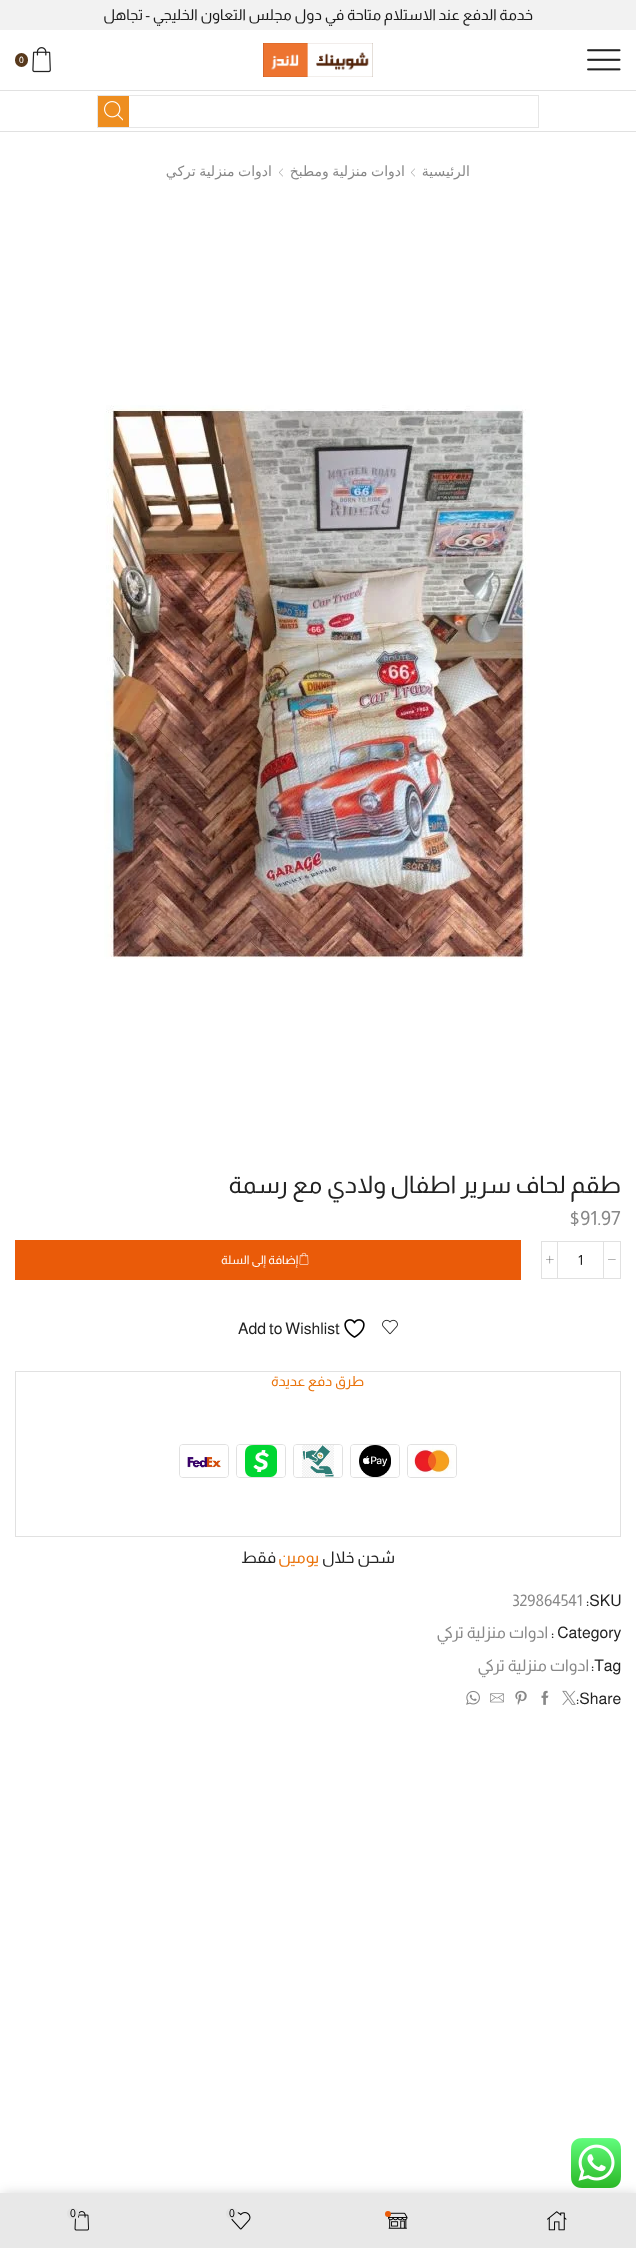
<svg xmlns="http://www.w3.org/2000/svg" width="636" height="2248">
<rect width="100%" height="100%" fill="#fff"/>
<rect width="636" height="30" fill="#f2f2f2"/>
<text x="533" y="20" style="font-family:Almarai;font-size:15px;direction:rtl;fill:#1a1a1a">خدمة الدفع عند الاستلام متاحة في دول مجلس التعاون الخليجي -</text>
<text x="143" y="20" style="font-family:Almarai;font-size:15px;direction:rtl;fill:#222">تجاهل</text>
<rect y="90" width="636" height="1" fill="#e1e1e1"/>
<image x="587" y="49" width="34" height="22" href="media/1.png"/>
<image x="263" y="43" width="110" height="34" href="media/2.png"/>
<image x="32" y="47" width="19" height="26" href="media/3.png"/>
<rect x="15" y="53" width="13" height="14" rx="6.5" fill="#58391c"/>
<text x="19" y="63" style="font-family:Almarai;font-size:9px;fill:#fff">0</text>
<rect y="131" width="636" height="1" fill="#e1e1e1"/>
<rect x="97.5" y="95.5" width="441" height="32" fill="none" stroke="#e6e6e6"/>
<rect x="98" y="96" width="31" height="31" fill="#ee8e20"/>
<image x="104" y="101" width="19" height="20" href="media/4.png"/>
<text x="470" y="176" style="font-family:DejaVu Sans;font-size:14px;direction:rtl;fill:#888">الرئيسية</text>
<image x="411" y="168" width="4" height="9" href="media/5.png"/>
<text x="405" y="176" word-spacing="-1" style="font-family:DejaVu Sans;font-size:14px;direction:rtl;fill:#888">ادوات منزلية ومطبخ</text>
<image x="279" y="168" width="4" height="9" href="media/5.png"/>
<text x="272" y="176" word-spacing="-1" style="font-family:DejaVu Sans;font-size:14px;direction:rtl;fill:#888">ادوات منزلية تركي</text>
<image x="104" y="405" width="426" height="554" href="media/6.png"/>
<text x="621" y="1193" style="font-family:Almarai;font-size:24px;direction:rtl;fill:#222">طقم لحاف سرير اطفال ولادي مع رسمة</text>
<text x="569" y="1225" style="font-family:Almarai;font-size:19.5px;fill:#888">$91.97</text>
<rect x="603.5" y="1241.5" width="17" height="37" fill="none" stroke="#e1e1e1"/>
<image x="608" y="1259" width="8" height="1" href="media/7.png"/>
<rect x="558" y="1241" width="45" height="1" fill="#e1e1e1"/>
<rect x="558" y="1278" width="45" height="1" fill="#e1e1e1"/>
<text x="578" y="1265" style="font-family:Almarai;font-size:14px;fill:#222">1</text>
<rect x="541.5" y="1241.5" width="16" height="37" fill="none" stroke="#e1e1e1"/>
<image x="546" y="1255" width="8" height="9" href="media/8.png"/>
<rect x="15" y="1240" width="506" height="40" fill="#ea5b09"/>
<image x="299" y="1252" width="10" height="13" href="media/9.png"/>
<text x="298" y="1264" style="font-family:Almarai;font-size:12px;direction:rtl;fill:#fff">إضافة إلى السلة</text>
<image x="382" y="1319" width="16" height="16" href="media/10.png"/>
<image x="344" y="1319" width="21" height="19" href="media/11.png"/>
<text x="238" y="1334" style="font-family:Almarai;font-size:16px;fill:#222">Add to Wishlist</text>
<rect x="15.5" y="1371.5" width="605" height="165" fill="none" stroke="#e1e1e1"/>
<text x="364" y="1386" style="font-family:Almarai;font-size:14px;direction:rtl;fill:#ea730b">طرق دفع عديدة</text>
<rect x="407.5" y="1444.5" width="49" height="33" rx="3.5" fill="none" stroke="#e1e1e1"/>
<image x="408" y="1445" width="48" height="32" href="media/12.png"/>
<rect x="350.5" y="1444.5" width="49" height="33" rx="3.5" fill="none" stroke="#e1e1e1"/>
<image x="351" y="1445" width="48" height="32" href="media/13.png"/>
<rect x="293.5" y="1444.5" width="49" height="33" rx="3.5" fill="none" stroke="#e1e1e1"/>
<image x="294" y="1445" width="48" height="32" href="media/14.png"/>
<rect x="236.5" y="1444.5" width="49" height="33" rx="3.5" fill="none" stroke="#e1e1e1"/>
<image x="237" y="1445" width="48" height="32" href="media/15.png"/>
<rect x="179.5" y="1444.5" width="49" height="33" rx="3.5" fill="none" stroke="#e1e1e1"/>
<image x="180" y="1445" width="48" height="32" href="media/16.png"/>
<text x="395" y="1563" style="font-family:Almarai;font-size:16px;direction:rtl;fill:#222">شحن خلال</text>
<text x="319" y="1563" style="font-family:Almarai;font-size:16px;direction:rtl;fill:#ea730b">يومين</text>
<text x="276" y="1563" style="font-family:Almarai;font-size:16px;direction:rtl;fill:#222">فقط</text>
<text x="586" y="1606" style="font-family:Almarai;font-size:16px;fill:#222">:SKU</text>
<text x="512" y="1606" style="font-family:Almarai;font-size:16px;fill:#888">329864541</text>
<text x="551" y="1638" style="font-family:Almarai;font-size:16px;fill:#222">: Category</text>
<text x="548" y="1638" style="font-family:Almarai;font-size:16px;direction:rtl;fill:#888">ادوات منزلية تركي</text>
<text x="591" y="1671" style="font-family:Almarai;font-size:16px;fill:#222">:Tag</text>
<text x="589" y="1671" style="font-family:Almarai;font-size:16px;direction:rtl;fill:#888">ادوات منزلية تركي</text>
<text x="576" y="1704" style="font-family:Almarai;font-size:16px;fill:#222">:Share</text>
<image x="562" y="1690" width="14" height="15" href="media/17.png"/>
<image x="541" y="1690" width="8" height="15" href="media/18.png"/>
<image x="515" y="1690" width="12" height="15" href="media/19.png"/>
<image x="490" y="1693" width="14" height="10" href="media/20.png"/>
<image x="466" y="1690" width="14" height="15" href="media/21.png"/>
<rect x="2" y="2193" width="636" height="55" fill="#00000026" filter="blur(6px)"/>
<rect y="2193" width="636" height="55" fill="#e8e8e8"/>
<image x="547" y="2211" width="20" height="20" href="media/22.png"/>
<image x="388" y="2212" width="20" height="17" href="media/23.png"/>
<circle cx="388" cy="2214" r="3" fill="#ea5b09"/>
<image x="231" y="2212" width="20" height="18" href="media/24.png"/>
<rect x="226" y="2208" width="12" height="11" rx="5.5" fill="#e1e1e1"/>
<text x="229" y="2217" style="font-family:Almarai;font-size:11px;fill:#000">0</text>
<image x="74" y="2211" width="15" height="20" href="media/25.png"/>
<rect x="67" y="2208" width="12" height="11" rx="5.5" fill="#e1e1e1"/>
<text x="70" y="2217" style="font-family:Almarai;font-size:11px;fill:#000">0</text>
<image x="571" y="2138" width="50" height="50" href="media/26.png"/>
</svg>
